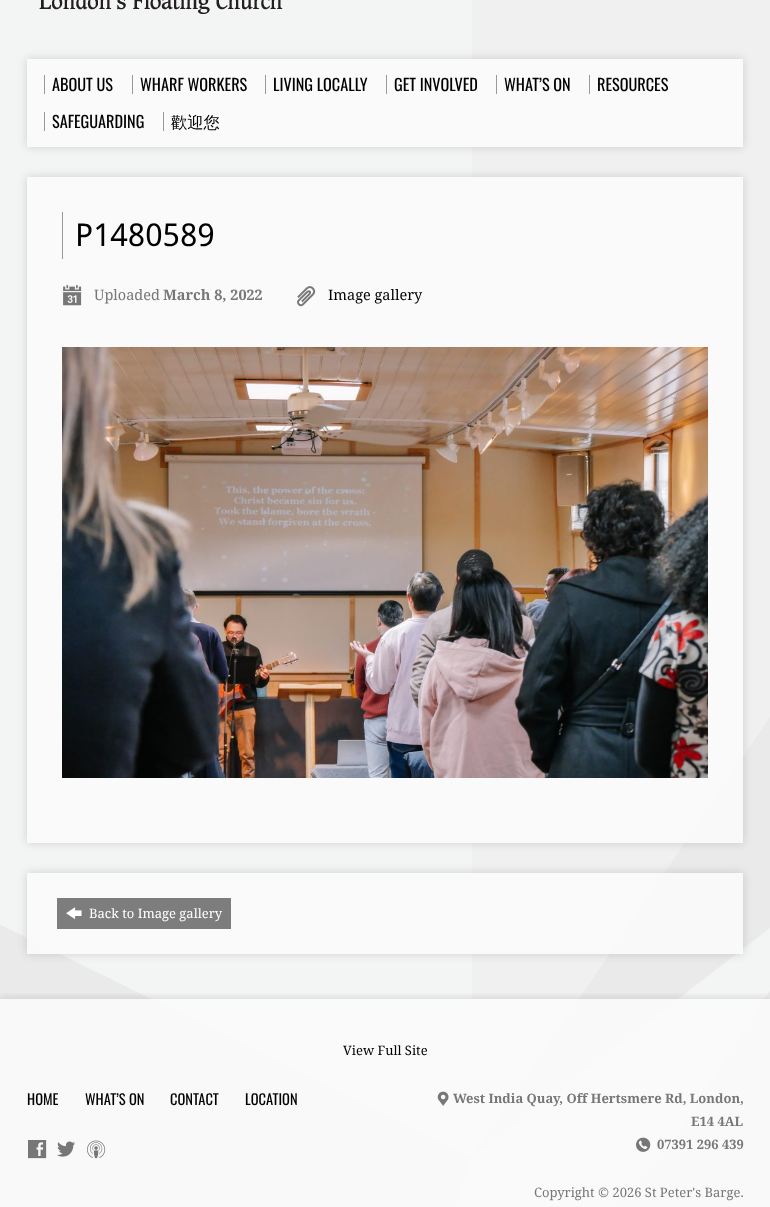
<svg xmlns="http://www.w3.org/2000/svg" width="770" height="1207">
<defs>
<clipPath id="clip1"><path d="M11 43h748v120h-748zm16 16h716v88h-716z" clip-rule="evenodd"/></clipPath>
<clipPath id="clip2"><path d="M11 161h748v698h-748zm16 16h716v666h-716z" clip-rule="evenodd"/></clipPath>
<clipPath id="clip3"><path d="M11 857h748v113h-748zm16 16h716v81h-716z" clip-rule="evenodd"/></clipPath>
<clipPath id="clip4"><rect x="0" y="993" width="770" height="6"/></clipPath>
</defs>
<rect width="100%" height="100%" fill="#fff"/>
<image x="0" y="0" width="770" height="1207" href="media/1.png"/>
<image x="39" y="0" width="244" height="14" href="media/2.png"/>
<g clip-path="url(#clip1)">
<rect x="27" y="59" width="716" height="88" fill="#00000026" filter="blur(5px)"/>
</g>
<rect x="27" y="59" width="716" height="88" fill="#fafafaf0"/>
<rect x="44" y="75" width="1" height="19" fill="#999"/>
<text x="52" y="91" style="font-family:Oswald;font-size:16.25px;fill:#000">ABOUT US</text>
<rect x="132" y="75" width="1" height="19" fill="#999"/>
<text x="140" y="91" style="font-family:Oswald;font-size:16.25px;fill:#000">WHARF WORKERS</text>
<rect x="265" y="75" width="1" height="19" fill="#999"/>
<text x="273" y="91" style="font-family:Oswald;font-size:16.25px;fill:#000">LIVING LOCALLY</text>
<rect x="386" y="75" width="1" height="19" fill="#999"/>
<text x="394" y="91" style="font-family:Oswald;font-size:16.25px;fill:#000">GET INVOLVED</text>
<rect x="496" y="75" width="1" height="19" fill="#999"/>
<text x="504" y="91" style="font-family:Oswald;font-size:16.25px;fill:#000">WHAT’S ON</text>
<rect x="589" y="75" width="1" height="19" fill="#999"/>
<text x="597" y="91" style="font-family:Oswald;font-size:16.25px;fill:#000">RESOURCES</text>
<rect x="44" y="112" width="1" height="19" fill="#999"/>
<text x="52" y="128" style="font-family:Oswald;font-size:16.25px;fill:#000">SAFEGUARDING</text>
<rect x="163" y="112" width="1" height="19" fill="#999"/>
<text x="171" y="128" style="font-family:WenQuanYi Zen Hei;font-size:16.25px;font-weight:500;fill:#000">歡迎您</text>
<g clip-path="url(#clip2)">
<rect x="27" y="177" width="716" height="666" fill="#00000026" filter="blur(5px)"/>
</g>
<rect x="27" y="177" width="716" height="666" fill="#fafafaf0"/>
<rect x="62" y="212" width="1" height="47" fill="#999"/>
<text x="75" y="246" style="font-family:Droid Sans;font-size:31.5px;fill:#000">P1480589</text>
<image x="63" y="285" width="19" height="21" href="media/3.png"/>
<text x="94" y="300" style="font-family:Droid Serif;font-size:14.5px;fill:#777">Uploaded</text>
<text x="163" y="300" style="font-family:Droid Serif;font-size:14.5px;font-weight:bold;fill:#777">March 8, 2022</text>
<image x="297" y="286" width="19" height="21" href="media/4.png"/>
<text x="328" y="300" style="font-family:Droid Serif;font-size:14.5px;fill:#000">Image gallery</text>
<image x="62" y="347" width="646" height="431" href="media/5.png"/>
<g clip-path="url(#clip3)">
<rect x="27" y="873" width="716" height="81" fill="#00000026" filter="blur(5px)"/>
</g>
<rect x="27" y="873" width="716" height="81" fill="#fafafaf0"/>
<rect x="57" y="898" width="174" height="31" fill="#7d7d7d"/>
<image x="66" y="907" width="16" height="12" href="media/6.png"/>
<text x="89" y="918" style="font-family:Droid Serif;font-size:13px;fill:#fff">Back to Image gallery</text>
<g clip-path="url(#clip4)">
<rect y="999" width="770" height="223" fill="#00000026" filter="blur(5px)"/>
</g>
<rect y="999" width="770" height="208" fill="#fafafaf0"/>
<text x="343" y="1055" style="font-family:Droid Serif;font-size:13px;fill:#000">View Full Site</text>
<text x="27" y="1105" style="font-family:Oswald;font-size:14.5px;fill:#000">HOME</text>
<text x="85" y="1105" style="font-family:Oswald;font-size:14.5px;fill:#000">WHAT’S ON</text>
<text x="170" y="1105" style="font-family:Oswald;font-size:14.5px;fill:#000">CONTACT</text>
<text x="245" y="1105" style="font-family:Oswald;font-size:14.5px;fill:#000">LOCATION</text>
<image x="28" y="1140" width="19" height="19" href="media/7.png"/>
<image x="57" y="1141" width="18" height="16" href="media/8.png"/>
<image x="87" y="1140" width="19" height="19" href="media/9.png"/>
<image x="437" y="1091" width="12" height="15" href="media/10.png"/>
<text x="453" y="1103" style="font-family:Droid Serif;font-size:13px;font-weight:bold;fill:#777">West India Quay, Off Hertsmere Rd, London,</text>
<text x="691" y="1126" style="font-family:Droid Serif;font-size:13px;font-weight:bold;fill:#777">E14 4AL</text>
<image x="636" y="1137" width="15" height="15" href="media/11.png"/>
<text x="657" y="1149" style="font-family:Droid Serif;font-size:13px;font-weight:bold;fill:#777">07391 296 439</text>
<text x="534" y="1197" style="font-family:Droid Serif;font-size:13px;fill:#777">Copyright © 2026 St Peter's Barge.</text>
</svg>
